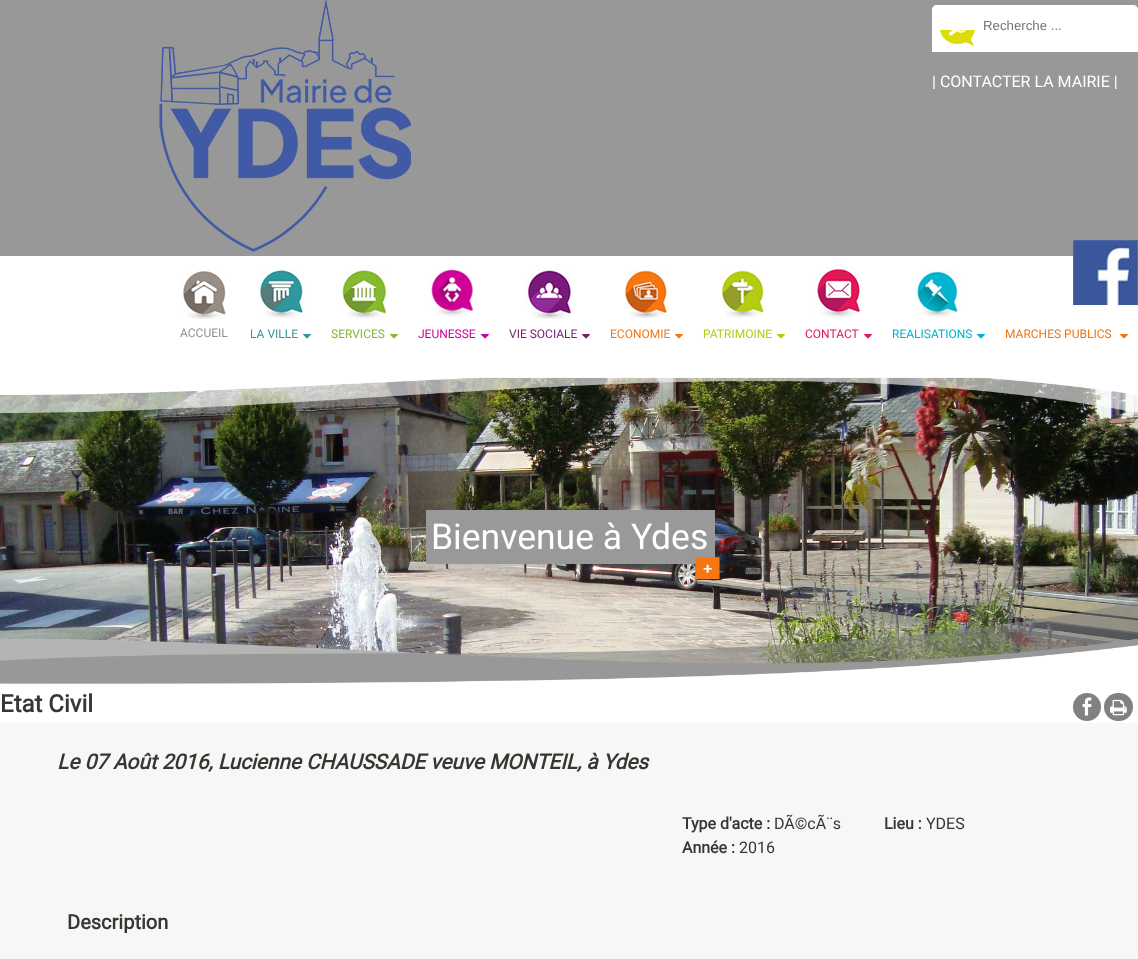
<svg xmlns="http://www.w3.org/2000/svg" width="1138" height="959">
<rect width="100%" height="100%" fill="#fff"/>
<rect width="1138" height="256" fill="#989898"/>
<image x="159" y="0" width="252" height="252" href="media/1.png"/>
<path d="M937 5h196c3 0 5 2 5 5v42h-206v-42c0-3 2-5 5-5z" fill="#fff"/>
<text x="983" y="30" style="font-family:Liberation Sans;font-size:13.25px;fill:#757575">Recherche ...</text>
<image x="940" y="30" width="35" height="16" href="media/2.png"/>
<text x="932" y="87" style="font-family:Roboto;font-size:16px;fill:#fff">| CONTACTER LA MAIRIE |</text>
<image x="180" y="266" width="46" height="53" href="media/3.png"/>
<text x="180" y="337" style="font-family:Roboto;font-size:12px;fill:#978e84">ACCUEIL</text>
<image x="256" y="266" width="50" height="53" href="media/4.png"/>
<text x="250" y="338" style="font-family:Roboto;font-size:12px;fill:#30979e">LA VILLE</text>
<image x="303" y="334" width="8" height="5" href="media/5.png"/>
<image x="340" y="266" width="46" height="53" href="media/6.png"/>
<text x="331" y="338" style="font-family:Roboto;font-size:12px;fill:#84ba30">SERVICES</text>
<image x="390" y="334" width="8" height="5" href="media/7.png"/>
<image x="428" y="269" width="45" height="48" href="media/8.png"/>
<text x="418" y="338" style="font-family:Roboto;font-size:12px;fill:#cb009b">JEUNESSE</text>
<image x="481" y="334" width="8" height="5" href="media/9.png"/>
<image x="524" y="266" width="50" height="53" href="media/10.png"/>
<text x="509" y="338" style="font-family:Roboto;font-size:12px;fill:#781a7a">VIE SOCIALE</text>
<image x="582" y="334" width="8" height="5" href="media/11.png"/>
<image x="625" y="269" width="44" height="49" href="media/12.png"/>
<text x="610" y="338" style="font-family:Roboto;font-size:12px;fill:#f57713">ECONOMIE</text>
<image x="675" y="334" width="8" height="5" href="media/13.png"/>
<image x="721" y="266" width="44" height="52" href="media/14.png"/>
<text x="703" y="338" style="font-family:Roboto;font-size:12px;fill:#b4cc14">PATRIMOINE</text>
<image x="777" y="334" width="8" height="5" href="media/15.png"/>
<image x="814" y="266" width="49" height="52" href="media/16.png"/>
<text x="805" y="338" style="font-family:Roboto;font-size:12px;fill:#e11957">CONTACT</text>
<image x="864" y="334" width="8" height="5" href="media/17.png"/>
<image x="914" y="270" width="47" height="48" href="media/18.png"/>
<text x="892" y="338" style="font-family:Roboto;font-size:12px;fill:#00b4cf">REALISATIONS</text>
<image x="977" y="334" width="8" height="5" href="media/19.png"/>
<text x="1005" y="338" style="font-family:Roboto;font-size:12px;fill:#ed7515">MARCHES PUBLICS</text>
<image x="1120" y="334" width="8" height="5" href="media/20.png"/>
<image x="0" y="377" width="1138" height="287" href="media/22.png"/>
<image x="0" y="361" width="1138" height="52" href="media/21.png"/>
<rect x="426" y="510" width="289" height="54" fill="#999"/>
<text x="431" y="549" style="font-family:Roboto;font-size:35.5px;fill:#fff">Bienvenue à Ydes</text>
<image x="695" y="557" width="25" height="23" href="media/23.png"/>
<image x="0" y="602" width="1138" height="88" href="media/24.png"/>
<image x="1073" y="240" width="65" height="65" href="media/25.png"/>
<text x="0" y="712" style="font-family:Roboto;font-size:24px;font-weight:bold;fill:#393632">Etat Civil</text>
<circle cx="1087" cy="707" r="14" fill="#818181"/>
<image x="1082" y="697" width="10" height="19" href="media/26.png"/>
<rect x="1104" y="693" width="29" height="28" rx="14" fill="#818181"/>
<image x="1110" y="699" width="17" height="17" href="media/27.png"/>
<rect y="723" width="1138" height="236" fill="#f7f7f7"/>
<text x="57" y="769" style="font-family:Roboto;font-size:20.8px;font-weight:bold;font-style:italic;fill:#393632">Le 07 Août 2016, Lucienne CHAUSSADE veuve MONTEIL, à Ydes</text>
<text x="682" y="829" style="font-family:Roboto;font-size:16px;font-weight:bold;fill:#393632">Type d'acte :</text>
<text x="774" y="829" style="font-family:Roboto;font-size:16px;fill:#393632">DÃ©cÃ¨s</text>
<text x="884" y="829" style="font-family:Roboto;font-size:16px;font-weight:bold;fill:#393632">Lieu :</text>
<text x="926" y="829" style="font-family:Roboto;font-size:16px;fill:#393632">YDES</text>
<text x="682" y="853" style="font-family:Roboto;font-size:16px;font-weight:bold;fill:#393632">Année :</text>
<text x="739" y="853" style="font-family:Roboto;font-size:16px;fill:#393632">2016</text>
<text x="67" y="929" style="font-family:Roboto;font-size:20px;font-weight:bold;fill:#393632">Description</text>
</svg>
